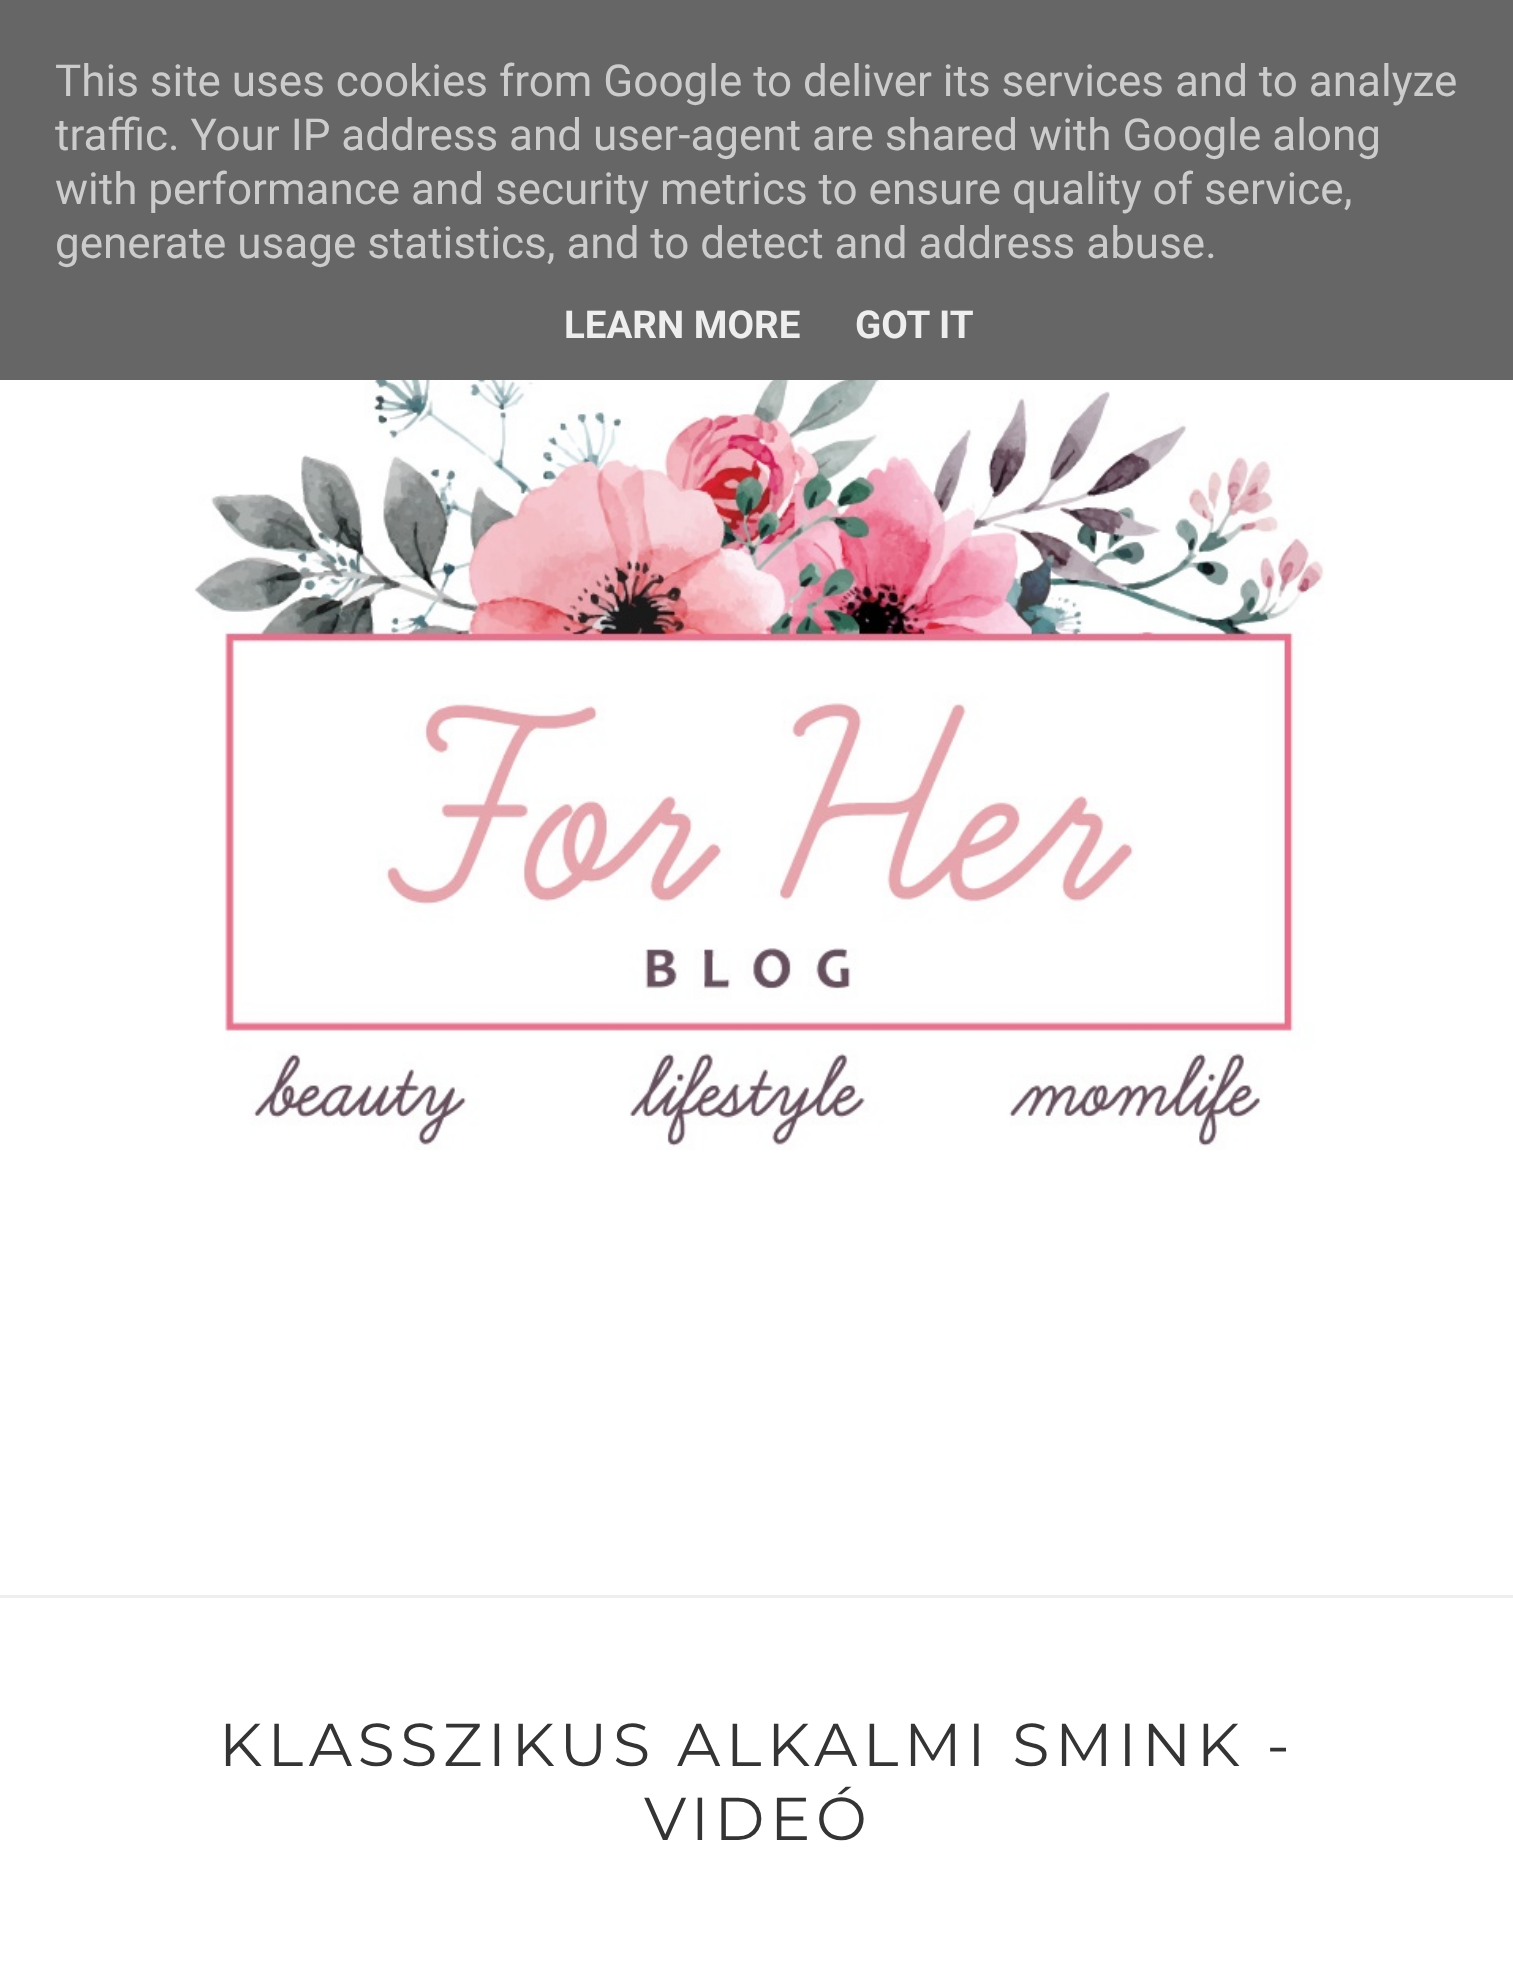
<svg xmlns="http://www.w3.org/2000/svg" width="1513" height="1983">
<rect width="100%" height="100%" fill="#fff"/>
<rect width="1513" height="380" fill="#666"/>
<text x="55" y="96" style="font-family:Roboto;font-size:44px;fill:#ccc">This site uses cookies from Google to deliver its services and to analyze</text>
<text x="55" y="150" style="font-family:Roboto;font-size:44px;fill:#ccc">traffic. Your IP address and user-agent are shared with Google along</text>
<text x="55" y="204" style="font-family:Roboto;font-size:44px;fill:#ccc">with performance and security metrics to ensure quality of service,</text>
<text x="55" y="258" style="font-family:Roboto;font-size:44px;fill:#ccc">generate usage statistics, and to detect and address abuse.</text>
<text x="564" y="338" style="font-family:Roboto;font-size:38.5px;font-weight:bold;fill:#eee">LEARN MORE</text>
<text x="855" y="338" style="font-family:Roboto;font-size:38.5px;font-weight:bold;fill:#eee">GOT IT</text>
<rect y="1595" width="1513" height="3" fill="#eee"/>
<image x="194" y="380" width="1131" height="770" href="media/1.png"/>
<text x="219" y="1766" style="font-family:Montserrat;font-size:60.5px;font-weight:100;letter-spacing:5.5px;fill:#343434">KLASSZIKUS ALKALMI SMINK -</text>
<text x="644" y="1840" style="font-family:Montserrat;font-size:60.5px;font-weight:100;letter-spacing:5.5px;fill:#343434">VIDEÓ</text>
</svg>
